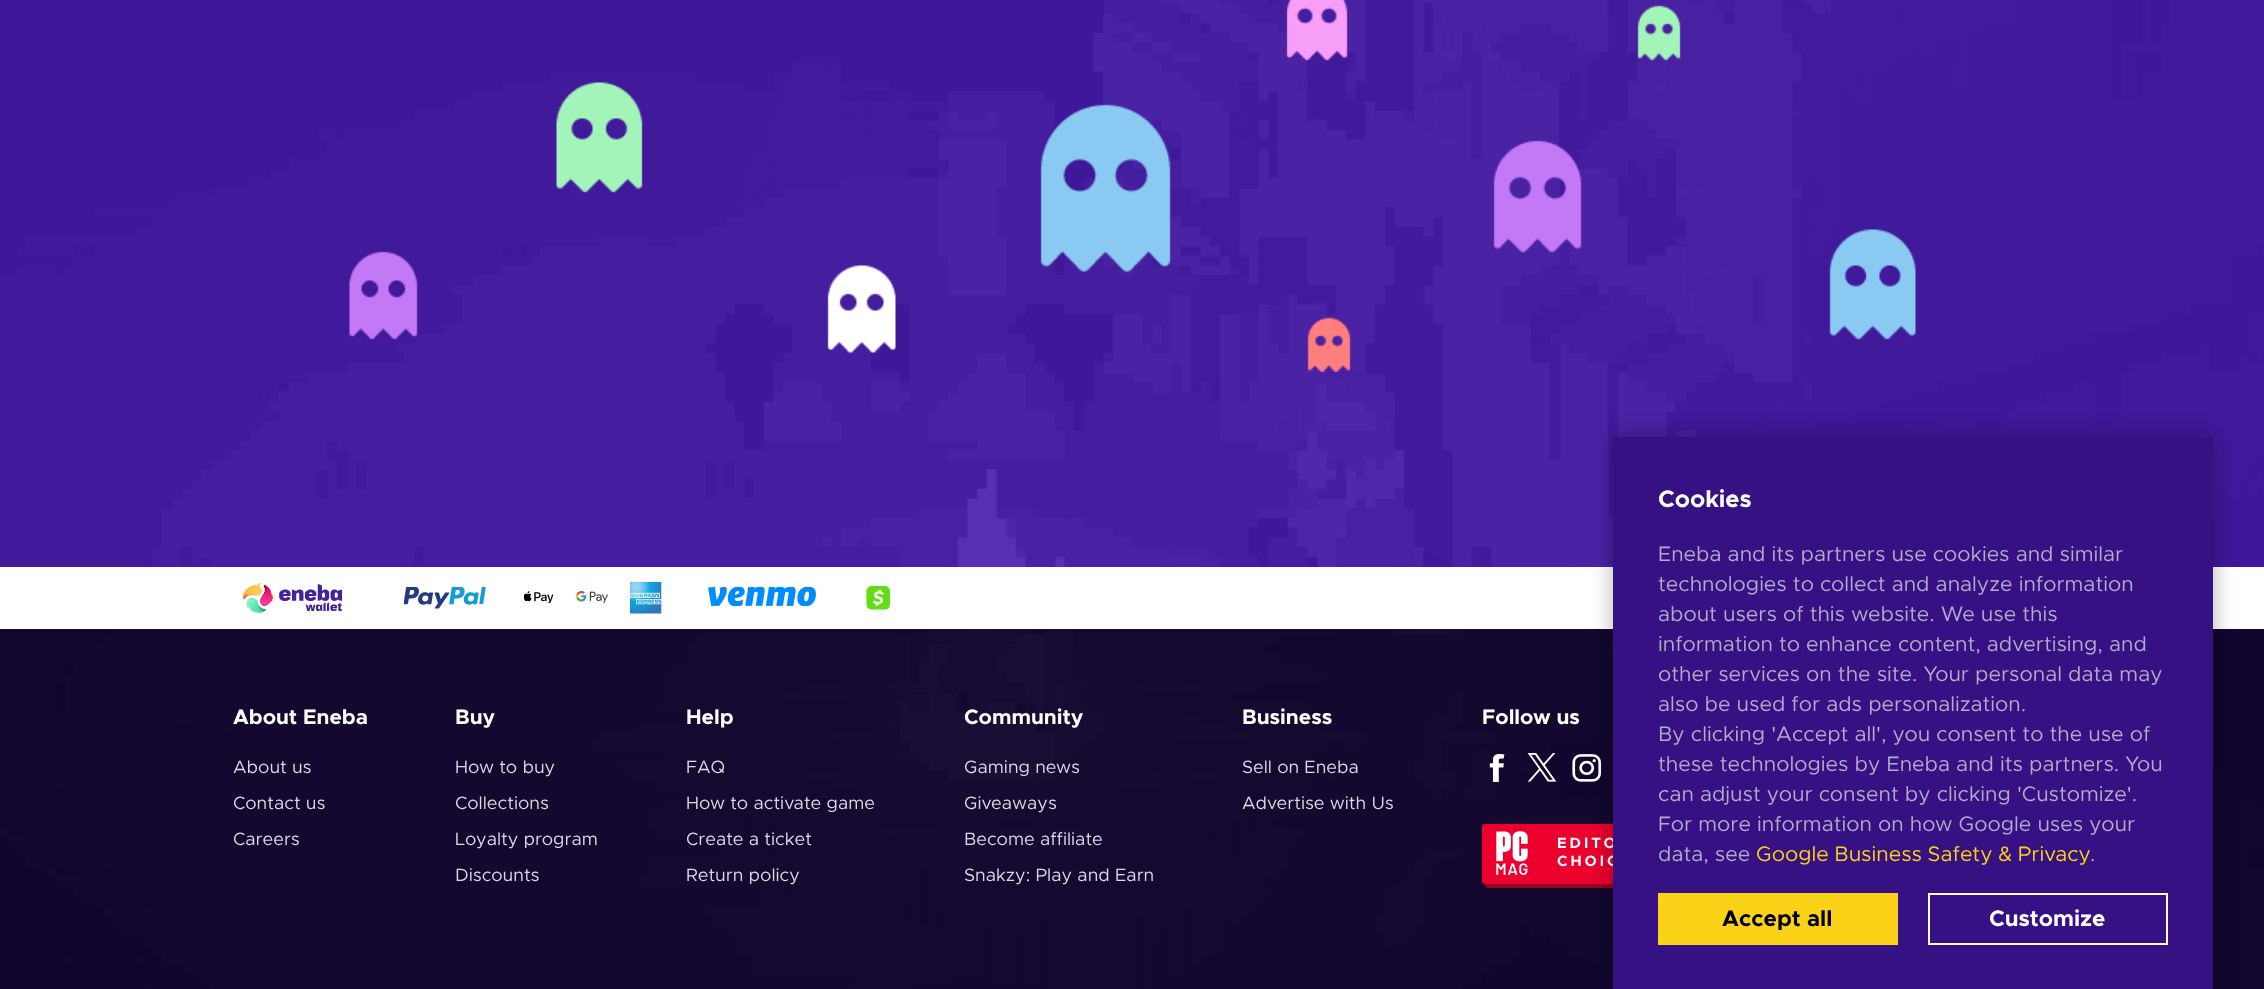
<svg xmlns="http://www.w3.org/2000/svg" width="2264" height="989">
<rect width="100%" height="100%" fill="#4618ac"/>
<image x="0" y="0" width="2264" height="989" href="media/1.png"/>
<image x="349" y="0" width="1567" height="372" href="media/2.png"/>
<rect y="629" width="2264" height="360" fill="#000000b3"/>
<rect y="567" width="2264" height="62" fill="#fff"/>
<image x="243" y="582" width="99" height="31" href="media/3.png"/>
<image x="404" y="587" width="82" height="22" href="media/4.png"/>
<image x="524" y="591" width="30" height="12" href="media/5.png"/>
<image x="576" y="591" width="32" height="12" href="media/6.png"/>
<image x="630" y="582" width="32" height="32" href="media/7.png"/>
<image x="708" y="587" width="108" height="19" href="media/8.png"/>
<image x="866" y="585" width="25" height="25" href="media/9.png"/>
<text x="233" y="724" style="font-family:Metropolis;font-size:21px;font-weight:bold;fill:#fff">About Eneba</text>
<text x="233" y="773" style="font-family:Metropolis;font-size:18px;fill:#dcd8e6">About us</text>
<text x="233" y="809" style="font-family:Metropolis;font-size:18px;fill:#dcd8e6">Contact us</text>
<text x="233" y="845" style="font-family:Metropolis;font-size:18px;fill:#dcd8e6">Careers</text>
<text x="455" y="724" style="font-family:Metropolis;font-size:21px;font-weight:bold;fill:#fff">Buy</text>
<text x="455" y="773" style="font-family:Metropolis;font-size:18px;fill:#dcd8e6">How to buy</text>
<text x="455" y="809" style="font-family:Metropolis;font-size:18px;fill:#dcd8e6">Collections</text>
<text x="455" y="845" style="font-family:Metropolis;font-size:18px;fill:#dcd8e6">Loyalty program</text>
<text x="455" y="881" style="font-family:Metropolis;font-size:18px;fill:#dcd8e6">Discounts</text>
<text x="686" y="724" style="font-family:Metropolis;font-size:21px;font-weight:bold;fill:#fff">Help</text>
<text x="686" y="773" style="font-family:Metropolis;font-size:18px;fill:#dcd8e6">FAQ</text>
<text x="686" y="809" style="font-family:Metropolis;font-size:18px;fill:#dcd8e6">How to activate game</text>
<text x="686" y="845" style="font-family:Metropolis;font-size:18px;fill:#dcd8e6">Create a ticket</text>
<text x="686" y="881" style="font-family:Metropolis;font-size:18px;fill:#dcd8e6">Return policy</text>
<text x="964" y="724" style="font-family:Metropolis;font-size:21px;font-weight:bold;fill:#fff">Community</text>
<text x="964" y="773" style="font-family:Metropolis;font-size:18px;fill:#dcd8e6">Gaming news</text>
<text x="964" y="809" style="font-family:Metropolis;font-size:18px;fill:#dcd8e6">Giveaways</text>
<text x="964" y="845" style="font-family:Metropolis;font-size:18px;fill:#dcd8e6">Become affiliate</text>
<text x="964" y="881" style="font-family:Metropolis;font-size:18px;fill:#dcd8e6">Snakzy: Play and Earn</text>
<text x="1242" y="724" style="font-family:Metropolis;font-size:21px;font-weight:bold;fill:#fff">Business</text>
<text x="1242" y="773" style="font-family:Metropolis;font-size:18px;fill:#dcd8e6">Sell on Eneba</text>
<text x="1242" y="809" style="font-family:Metropolis;font-size:18px;fill:#dcd8e6">Advertise with Us</text>
<text x="1482" y="724" style="font-family:Metropolis;font-size:21px;font-weight:bold;fill:#fff">Follow us</text>
<image x="1489" y="754" width="16" height="28" href="media/10.png"/>
<image x="1527" y="753" width="30" height="29" href="media/11.png"/>
<image x="1572" y="754" width="30" height="28" href="media/12.png"/>
<path d="M1485 884v1c0 2 1 3 3 3h165c2 0 3-1 3-3v-54c0-2-1-3-3-3v52c0 2-1 4-3 4z" fill="#99001f"/>
<rect x="1482" y="824" width="171" height="60" rx="3" fill="#eb002e"/>
<image x="1496" y="831" width="32" height="44" href="media/13.png"/>
<text x="1557" y="848" style="font-family:Metropolis;font-size:15px;font-weight:bold;letter-spacing:3px;fill:#fff">EDITO</text>
<text x="1557" y="866" style="font-family:Metropolis;font-size:15px;font-weight:bold;letter-spacing:3px;fill:#fff">CHOIC</text>
<rect x="1613" y="437" width="600" height="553" fill="#0000004d" filter="blur(11px)"/>
<rect x="1613" y="437" width="600" height="552" fill="#351183"/>
<text x="1658" y="507" style="font-family:Metropolis;font-size:24px;font-weight:bold;fill:#fff">Cookies</text>
<text x="1658" y="561" style="font-family:Metropolis;font-size:21px;fill:#b3aac9">Eneba and its partners use cookies and similar</text>
<text x="1658" y="591" style="font-family:Metropolis;font-size:21px;fill:#b3aac9">technologies to collect and analyze information</text>
<text x="1658" y="621" style="font-family:Metropolis;font-size:21px;fill:#b3aac9">about users of this website. We use this</text>
<text x="1658" y="651" style="font-family:Metropolis;font-size:21px;fill:#b3aac9">information to enhance content, advertising, and</text>
<text x="1658" y="681" style="font-family:Metropolis;font-size:21px;fill:#b3aac9">other services on the site. Your personal data may</text>
<text x="1658" y="711" style="font-family:Metropolis;font-size:21px;fill:#b3aac9">also be used for ads personalization.</text>
<text x="1658" y="741" style="font-family:Metropolis;font-size:21px;fill:#b3aac9">By clicking 'Accept all', you consent to the use of</text>
<text x="1658" y="771" style="font-family:Metropolis;font-size:21px;fill:#b3aac9">these technologies by Eneba and its partners. You</text>
<text x="1658" y="801" style="font-family:Metropolis;font-size:21px;fill:#b3aac9">can adjust your consent by clicking 'Customize'.</text>
<text x="1658" y="831" style="font-family:Metropolis;font-size:21px;fill:#b3aac9">For more information on how Google uses your</text>
<text x="1658" y="861" style="font-family:Metropolis;font-size:21px;fill:#b3aac9">data, see</text>
<text x="1756" y="861" word-spacing="-0.5" style="font-family:Metropolis;font-size:21px;fill:#fad318">Google Business Safety &amp; Privacy</text>
<text x="2090" y="861" style="font-family:Metropolis;font-size:21px;fill:#b3aac9">.</text>
<rect x="1658" y="893" width="240" height="52" fill="#fad318"/>
<text x="1722" y="926" style="font-family:Metropolis;font-size:22.5px;font-weight:bold;fill:#000">Accept all</text>
<rect x="1929" y="894" width="238" height="50" fill="none" stroke="#fff" stroke-width="2"/>
<text x="1989" y="926" style="font-family:Metropolis;font-size:22.5px;font-weight:bold;fill:#fff">Customize</text>
</svg>
